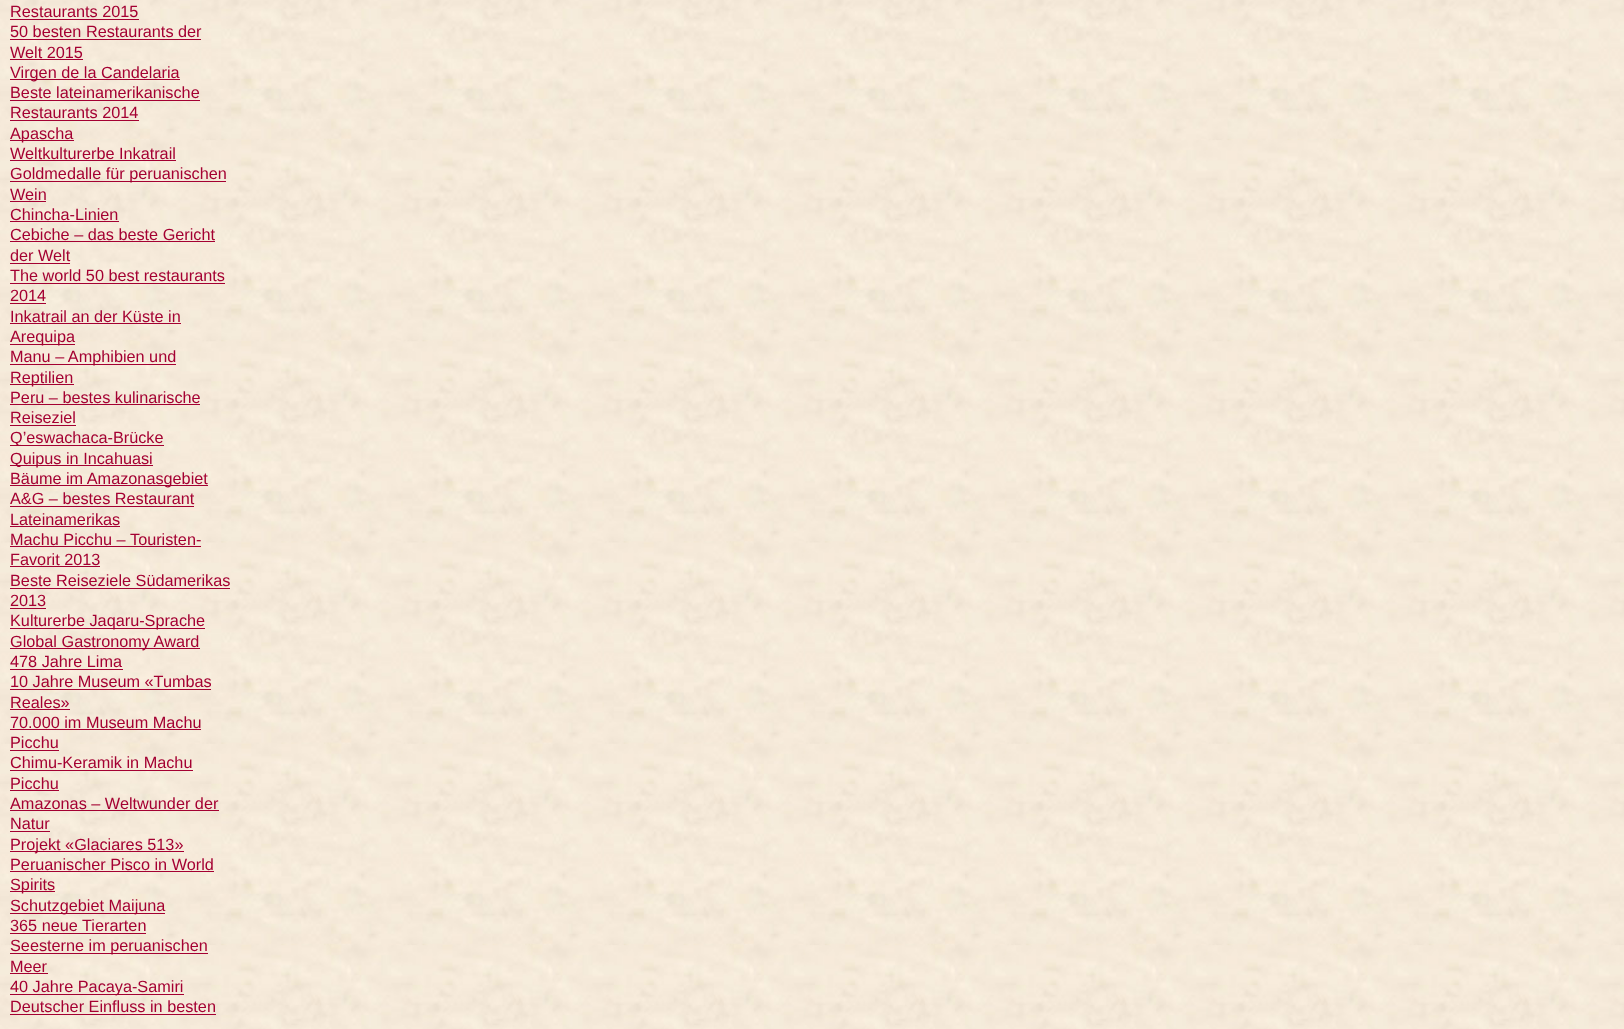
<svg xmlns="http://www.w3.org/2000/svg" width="1624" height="1029">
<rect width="100%" height="100%" fill="#fff"/>
<image x="0" y="0" width="1624" height="1029" href="media/1.png"/>
<text x="10" y="17" style="font-family:Liberation Sans;font-size:16.25px;fill:#a40032">Restaurants 2015</text>
<rect x="10" y="19" width="129" height="1" fill="#a40032"/>
<text x="10" y="37" style="font-family:Liberation Sans;font-size:16.25px;fill:#a40032">50 besten Restaurants der</text>
<rect x="10" y="39" width="191" height="1" fill="#a40032"/>
<text x="10" y="58" style="font-family:Liberation Sans;font-size:16.25px;fill:#a40032">Welt 2015</text>
<rect x="10" y="59" width="73" height="1" fill="#a40032"/>
<rect x="10" y="79" width="170" height="1" fill="#a40032"/>
<text x="10" y="78" style="font-family:Liberation Sans;font-size:16.25px;fill:#a40032">Virgen de la Candelaria</text>
<text x="10" y="98" style="font-family:Liberation Sans;font-size:16.25px;fill:#a40032">Beste lateinamerikanische</text>
<rect x="10" y="100" width="190" height="1" fill="#a40032"/>
<text x="10" y="118" style="font-family:Liberation Sans;font-size:16.25px;fill:#a40032">Restaurants 2014</text>
<rect x="10" y="120" width="129" height="1" fill="#a40032"/>
<rect x="10" y="140" width="64" height="1" fill="#a40032"/>
<text x="10" y="139" style="font-family:Liberation Sans;font-size:16.25px;fill:#a40032">Apascha</text>
<text x="10" y="159" style="font-family:Liberation Sans;font-size:16.25px;fill:#a40032">Weltkulturerbe Inkatrail</text>
<rect x="10" y="160" width="166" height="1" fill="#a40032"/>
<rect x="10" y="181" width="216" height="1" fill="#a40032"/>
<text x="10" y="179" style="font-family:Liberation Sans;font-size:16.25px;fill:#a40032">Goldmedalle für peruanischen</text>
<text x="10" y="200" style="font-family:Liberation Sans;font-size:16.25px;fill:#a40032">Wein</text>
<rect x="10" y="201" width="36" height="1" fill="#a40032"/>
<text x="10" y="220" style="font-family:Liberation Sans;font-size:16.25px;fill:#a40032">Chincha-Linien</text>
<rect x="10" y="221" width="109" height="1" fill="#a40032"/>
<text x="10" y="240" style="font-family:Liberation Sans;font-size:16.25px;fill:#a40032">Cebiche – das beste Gericht</text>
<rect x="10" y="241" width="205" height="1" fill="#a40032"/>
<text x="10" y="261" style="font-family:Liberation Sans;font-size:16.25px;fill:#a40032">der Welt</text>
<rect x="10" y="263" width="60" height="1" fill="#a40032"/>
<text x="10" y="281" style="font-family:Liberation Sans;font-size:16.25px;fill:#a40032">The world 50 best restaurants</text>
<rect x="10" y="283" width="215" height="1" fill="#a40032"/>
<text x="10" y="301" style="font-family:Liberation Sans;font-size:16.25px;fill:#a40032">2014</text>
<rect x="10" y="303" width="36" height="1" fill="#a40032"/>
<text x="10" y="322" style="font-family:Liberation Sans;font-size:16.25px;fill:#a40032">Inkatrail an der Küste in</text>
<rect x="10" y="323" width="171" height="1" fill="#a40032"/>
<rect x="10" y="344" width="65" height="1" fill="#a40032"/>
<text x="10" y="342" style="font-family:Liberation Sans;font-size:16.25px;fill:#a40032">Arequipa</text>
<rect x="10" y="364" width="166" height="1" fill="#a40032"/>
<text x="10" y="362" style="font-family:Liberation Sans;font-size:16.25px;fill:#a40032">Manu – Amphibien und</text>
<rect x="10" y="384" width="64" height="1" fill="#a40032"/>
<text x="10" y="383" style="font-family:Liberation Sans;font-size:16.25px;fill:#a40032">Reptilien</text>
<text x="10" y="403" style="font-family:Liberation Sans;font-size:16.25px;fill:#a40032">Peru – bestes kulinarische</text>
<rect x="10" y="404" width="190" height="1" fill="#a40032"/>
<text x="10" y="423" style="font-family:Liberation Sans;font-size:16.25px;fill:#a40032">Reiseziel</text>
<rect x="10" y="425" width="66" height="1" fill="#a40032"/>
<rect x="10" y="445" width="154" height="1" fill="#a40032"/>
<text x="10" y="443" style="font-family:Liberation Sans;font-size:16.25px;fill:#a40032">Q’eswachaca-Brücke</text>
<rect x="10" y="465" width="143" height="1" fill="#a40032"/>
<text x="10" y="464" style="font-family:Liberation Sans;font-size:16.25px;fill:#a40032">Quipus in Incahuasi</text>
<rect x="10" y="485" width="198" height="1" fill="#a40032"/>
<text x="10" y="484" style="font-family:Liberation Sans;font-size:16.25px;fill:#a40032">Bäume im Amazonasgebiet</text>
<text x="10" y="504" style="font-family:Liberation Sans;font-size:16.25px;fill:#a40032">A&amp;G – bestes Restaurant</text>
<rect x="10" y="506" width="184" height="1" fill="#a40032"/>
<text x="10" y="525" style="font-family:Liberation Sans;font-size:16.25px;fill:#a40032">Lateinamerikas</text>
<rect x="10" y="526" width="110" height="1" fill="#a40032"/>
<text x="10" y="545" style="font-family:Liberation Sans;font-size:16.25px;fill:#a40032">Machu Picchu –</text>
<rect x="10" y="546" width="191" height="1" fill="#a40032"/>
<text x="130" y="545" style="font-family:Liberation Sans;font-size:16.25px;fill:#a40032">Touristen-</text>
<text x="10" y="565" style="font-family:Liberation Sans;font-size:16.25px;fill:#a40032">Favorit 2013</text>
<rect x="10" y="566" width="90" height="1" fill="#a40032"/>
<text x="10" y="586" style="font-family:Liberation Sans;font-size:16.25px;fill:#a40032">Beste Reiseziele Südamerikas</text>
<rect x="10" y="588" width="220" height="1" fill="#a40032"/>
<text x="10" y="606" style="font-family:Liberation Sans;font-size:16.25px;fill:#a40032">2013</text>
<rect x="10" y="608" width="36" height="1" fill="#a40032"/>
<rect x="10" y="628" width="195" height="1" fill="#a40032"/>
<text x="10" y="626" style="font-family:Liberation Sans;font-size:16.25px;fill:#a40032">Kulturerbe Jaqaru-Sprache</text>
<rect x="10" y="648" width="190" height="1" fill="#a40032"/>
<text x="10" y="647" style="font-family:Liberation Sans;font-size:16.25px;fill:#a40032">Global Gastronomy Award</text>
<text x="10" y="667" style="font-family:Liberation Sans;font-size:16.25px;fill:#a40032">478 Jahre Lima</text>
<rect x="10" y="669" width="113" height="1" fill="#a40032"/>
<text x="10" y="687" style="font-family:Liberation Sans;font-size:16.25px;fill:#a40032">10 Jahre Museum «Tumbas</text>
<rect x="10" y="689" width="201" height="1" fill="#a40032"/>
<text x="10" y="708" style="font-family:Liberation Sans;font-size:16.25px;fill:#a40032">Reales»</text>
<rect x="10" y="709" width="60" height="1" fill="#a40032"/>
<text x="10" y="728" style="font-family:Liberation Sans;font-size:16.25px;fill:#a40032">70.000 im Museum Machu</text>
<rect x="10" y="729" width="191" height="1" fill="#a40032"/>
<text x="10" y="748" style="font-family:Liberation Sans;font-size:16.25px;fill:#a40032">Picchu</text>
<rect x="10" y="750" width="49" height="1" fill="#a40032"/>
<text x="10" y="768" style="font-family:Liberation Sans;font-size:16.25px;fill:#a40032">Chimu-Keramik in Machu</text>
<rect x="10" y="770" width="183" height="1" fill="#a40032"/>
<text x="10" y="789" style="font-family:Liberation Sans;font-size:16.25px;fill:#a40032">Picchu</text>
<rect x="10" y="790" width="49" height="1" fill="#a40032"/>
<text x="10" y="809" style="font-family:Liberation Sans;font-size:16.25px;fill:#a40032">Amazonas – Weltwunder der</text>
<rect x="10" y="810" width="209" height="1" fill="#a40032"/>
<text x="10" y="829" style="font-family:Liberation Sans;font-size:16.25px;fill:#a40032">Natur</text>
<rect x="10" y="831" width="40" height="1" fill="#a40032"/>
<rect x="10" y="851" width="174" height="1" fill="#a40032"/>
<text x="10" y="850" style="font-family:Liberation Sans;font-size:16.25px;fill:#a40032">Projekt «Glaciares 513»</text>
<text x="10" y="870" style="font-family:Liberation Sans;font-size:16.25px;fill:#a40032">Peruanischer Pisco in World</text>
<rect x="10" y="871" width="204" height="1" fill="#a40032"/>
<rect x="10" y="891" width="45" height="1" fill="#a40032"/>
<text x="10" y="890" style="font-family:Liberation Sans;font-size:16.25px;fill:#a40032">Spirits</text>
<rect x="10" y="913" width="155" height="1" fill="#a40032"/>
<text x="10" y="911" style="font-family:Liberation Sans;font-size:16.25px;fill:#a40032">Schutzgebiet Maijuna</text>
<text x="10" y="931" style="font-family:Liberation Sans;font-size:16.25px;fill:#a40032">365 neue Tierarten</text>
<rect x="10" y="933" width="136" height="1" fill="#a40032"/>
<rect x="10" y="953" width="198" height="1" fill="#a40032"/>
<text x="10" y="951" style="font-family:Liberation Sans;font-size:16.25px;fill:#a40032">Seesterne im peruanischen</text>
<text x="10" y="972" style="font-family:Liberation Sans;font-size:16.25px;fill:#a40032">Meer</text>
<rect x="10" y="973" width="38" height="1" fill="#a40032"/>
<rect x="10" y="994" width="174" height="1" fill="#a40032"/>
<text x="10" y="992" style="font-family:Liberation Sans;font-size:16.25px;fill:#a40032">40 Jahre Pacaya-Samiri</text>
<text x="10" y="1012" style="font-family:Liberation Sans;font-size:16.25px;fill:#a40032">Deutscher Einfluss in besten</text>
<rect x="10" y="1014" width="206" height="1" fill="#a40032"/>
</svg>
